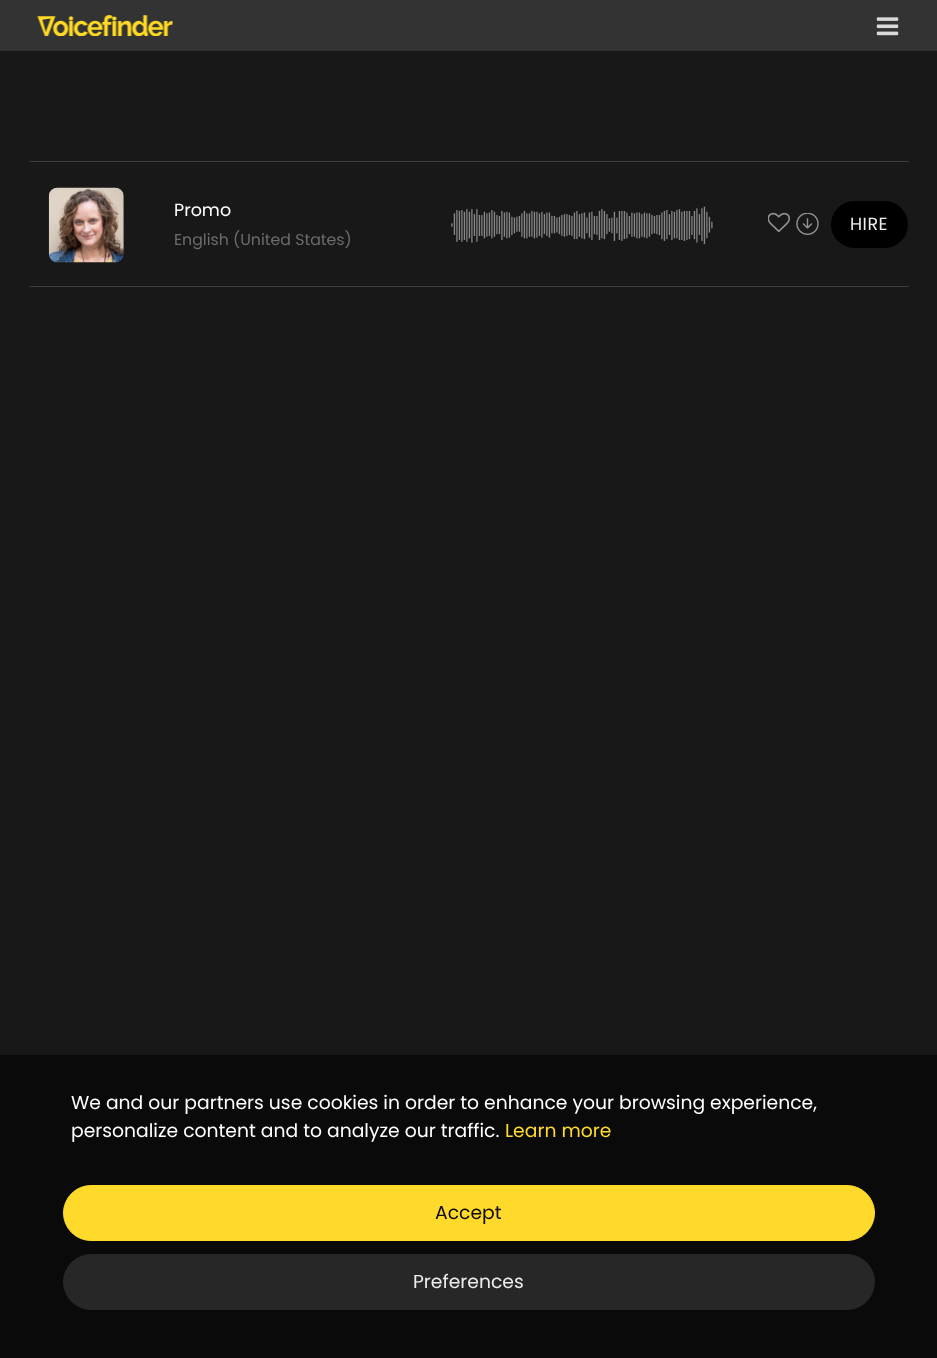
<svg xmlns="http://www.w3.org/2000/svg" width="937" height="1358">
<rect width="100%" height="100%" fill="#181818"/>
<rect width="937" height="51" fill="#333"/>
<image x="37" y="15" width="136" height="21" href="media/1.png"/>
<image x="876" y="17" width="23" height="19" href="media/2.png"/>
<rect x="30" y="161" width="879" height="1" fill="#3e3e3e"/>
<rect x="30" y="286" width="879" height="1" fill="#3e3e3e"/>
<image x="48" y="187" width="76" height="76" href="media/3.png"/>
<text x="174" y="216" style="font-family:Poppins;font-size:17.5px;fill:#fff">Promo</text>
<text x="174" y="245" style="font-family:Poppins;font-size:15.75px;fill:#6c6c6c">English (United States)</text>
<image x="451" y="206" width="262" height="39" href="media/4.png"/>
<image x="768" y="212" width="22" height="21" href="media/5.png"/>
<image x="796" y="213" width="23" height="22" href="media/6.png"/>
<rect x="831" y="201" width="77" height="47" rx="23.5" fill="#000"/>
<text x="850" y="230" style="font-family:Poppins;font-size:17.5px;letter-spacing:0.5px;fill:#ededed">HIRE</text>
<rect y="1055" width="937" height="303" fill="#0a0a0a"/>
<text x="71" y="1109" style="font-family:Poppins;font-size:18.75px;fill:#fff">We and our partners use cookies in order to enhance your browsing experience,</text>
<text x="71" y="1137" style="font-family:Poppins;font-size:18.75px;fill:#fff">personalize content and to analyze our traffic.</text>
<text x="505" y="1137" style="font-family:Poppins;font-size:18.75px;fill:#ffda2a">Learn more</text>
<rect x="63.5" y="1185.5" width="811" height="55" rx="27.5" fill="#ffda2a" stroke="#ffda2a"/>
<text x="435" y="1219" style="font-family:Poppins;font-size:18.75px;fill:#0a0a0a">Accept</text>
<rect x="63.5" y="1254.5" width="811" height="55" rx="27.5" fill="#272727" stroke="#272727"/>
<text x="413" y="1288" style="font-family:Poppins;font-size:18.75px;fill:#ededed">Preferences</text>
</svg>
